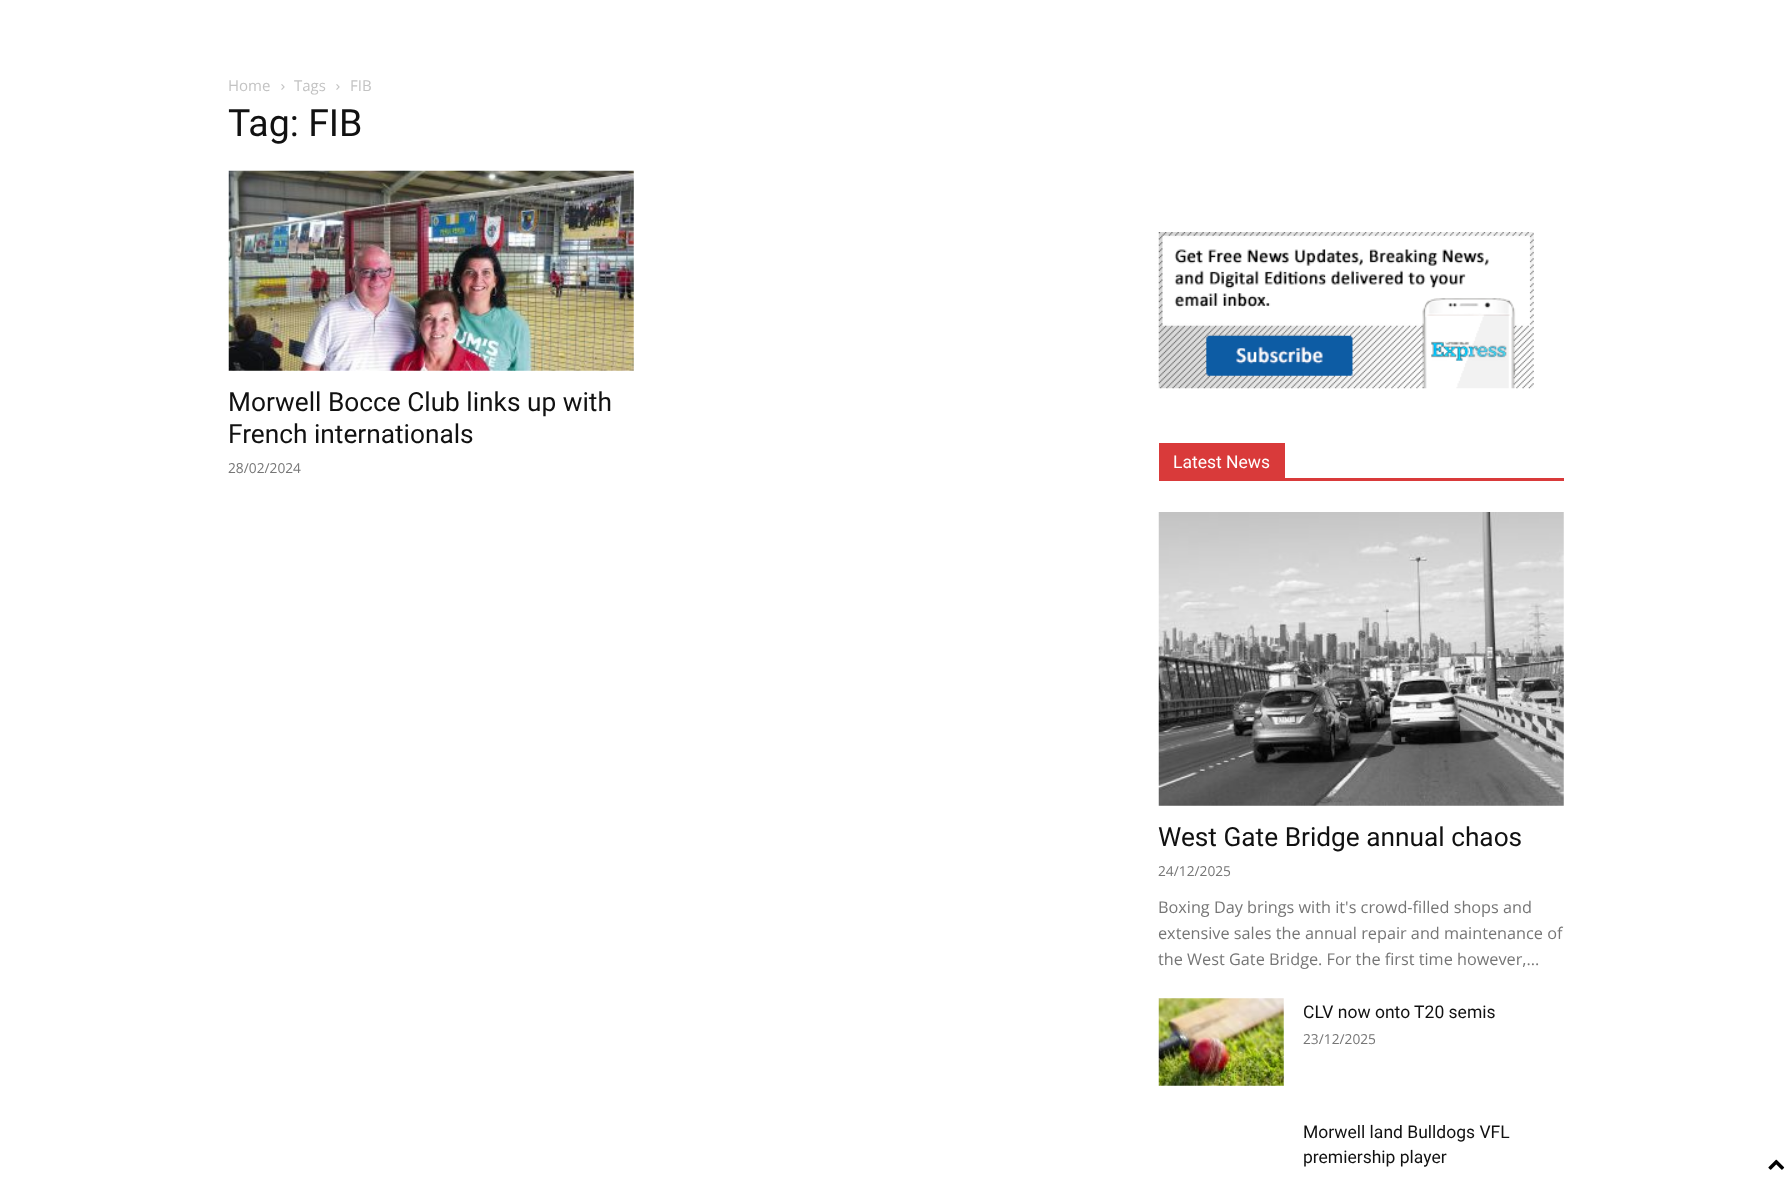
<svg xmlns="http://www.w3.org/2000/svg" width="1791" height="1183">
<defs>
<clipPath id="clip1"><rect x="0" y="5" width="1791" height="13"/></clipPath>
</defs>
<rect width="100%" height="100%" fill="#fff"/>
<g clip-path="url(#clip1)">
<rect x="6" y="-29" width="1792" height="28" fill="#000" filter="blur(9.5px)"/>
</g>
<text x="228" y="91" style="font-family:Open Sans;font-size:15px;fill:#c3c3c3">Home</text>
<image x="281" y="84" width="4" height="6" href="media/1.png"/>
<text x="294" y="91" style="font-family:Open Sans;font-size:15px;fill:#c3c3c3">Tags</text>
<image x="336" y="84" width="4" height="6" href="media/1.png"/>
<text x="350" y="91" style="font-family:Open Sans;font-size:15px;fill:#c3c3c3">FIB</text>
<text x="228" y="136" style="font-family:Roboto;font-size:37.5px;fill:#111">Tag: FIB</text>
<image x="228" y="170" width="406" height="201" href="media/2.png"/>
<text x="228" y="411" style="font-family:Roboto;font-size:26.25px;fill:#111">Morwell Bocce Club links up with</text>
<text x="228" y="443" style="font-family:Roboto;font-size:26.25px;fill:#111">French internationals</text>
<text x="228" y="473" style="font-family:Open Sans;font-size:13.75px;fill:#767676">28/02/2024</text>
<image x="1158" y="232" width="376" height="157" href="media/3.png"/>
<rect x="1159" y="478" width="405" height="3" fill="#d93a3a"/>
<rect x="1159" y="443" width="126" height="35" fill="#d93a3a"/>
<text x="1173" y="468" style="font-family:Roboto;font-size:17.5px;fill:#fff">Latest News</text>
<image x="1158" y="512" width="406" height="294" href="media/4.png"/>
<text x="1158" y="846" style="font-family:Roboto;font-size:26.25px;fill:#111">West Gate Bridge annual chaos</text>
<text x="1158" y="876" style="font-family:Open Sans;font-size:13.75px;fill:#767676">24/12/2025</text>
<text x="1158" y="913" style="font-family:Open Sans;font-size:16.25px;fill:#767676">Boxing Day brings with it's crowd-filled shops and</text>
<text x="1158" y="939" style="font-family:Open Sans;font-size:16.25px;fill:#767676">extensive sales the annual repair and maintenance of</text>
<text x="1158" y="965" style="font-family:Open Sans;font-size:16.25px;fill:#767676">the West Gate Bridge. For the first time however,...</text>
<image x="1158" y="998" width="126" height="88" href="media/5.png"/>
<text x="1303" y="1018" style="font-family:Roboto;font-size:17.5px;fill:#111">CLV now onto T20 semis</text>
<text x="1303" y="1044" style="font-family:Open Sans;font-size:13.75px;fill:#767676">23/12/2025</text>
<text x="1303" y="1138" style="font-family:Roboto;font-size:17.5px;fill:#111">Morwell land Bulldogs VFL</text>
<text x="1303" y="1163" style="font-family:Roboto;font-size:17.5px;fill:#111">premiership player</text>
<image x="1768" y="1159" width="17" height="11" href="media/6.png"/>
</svg>
